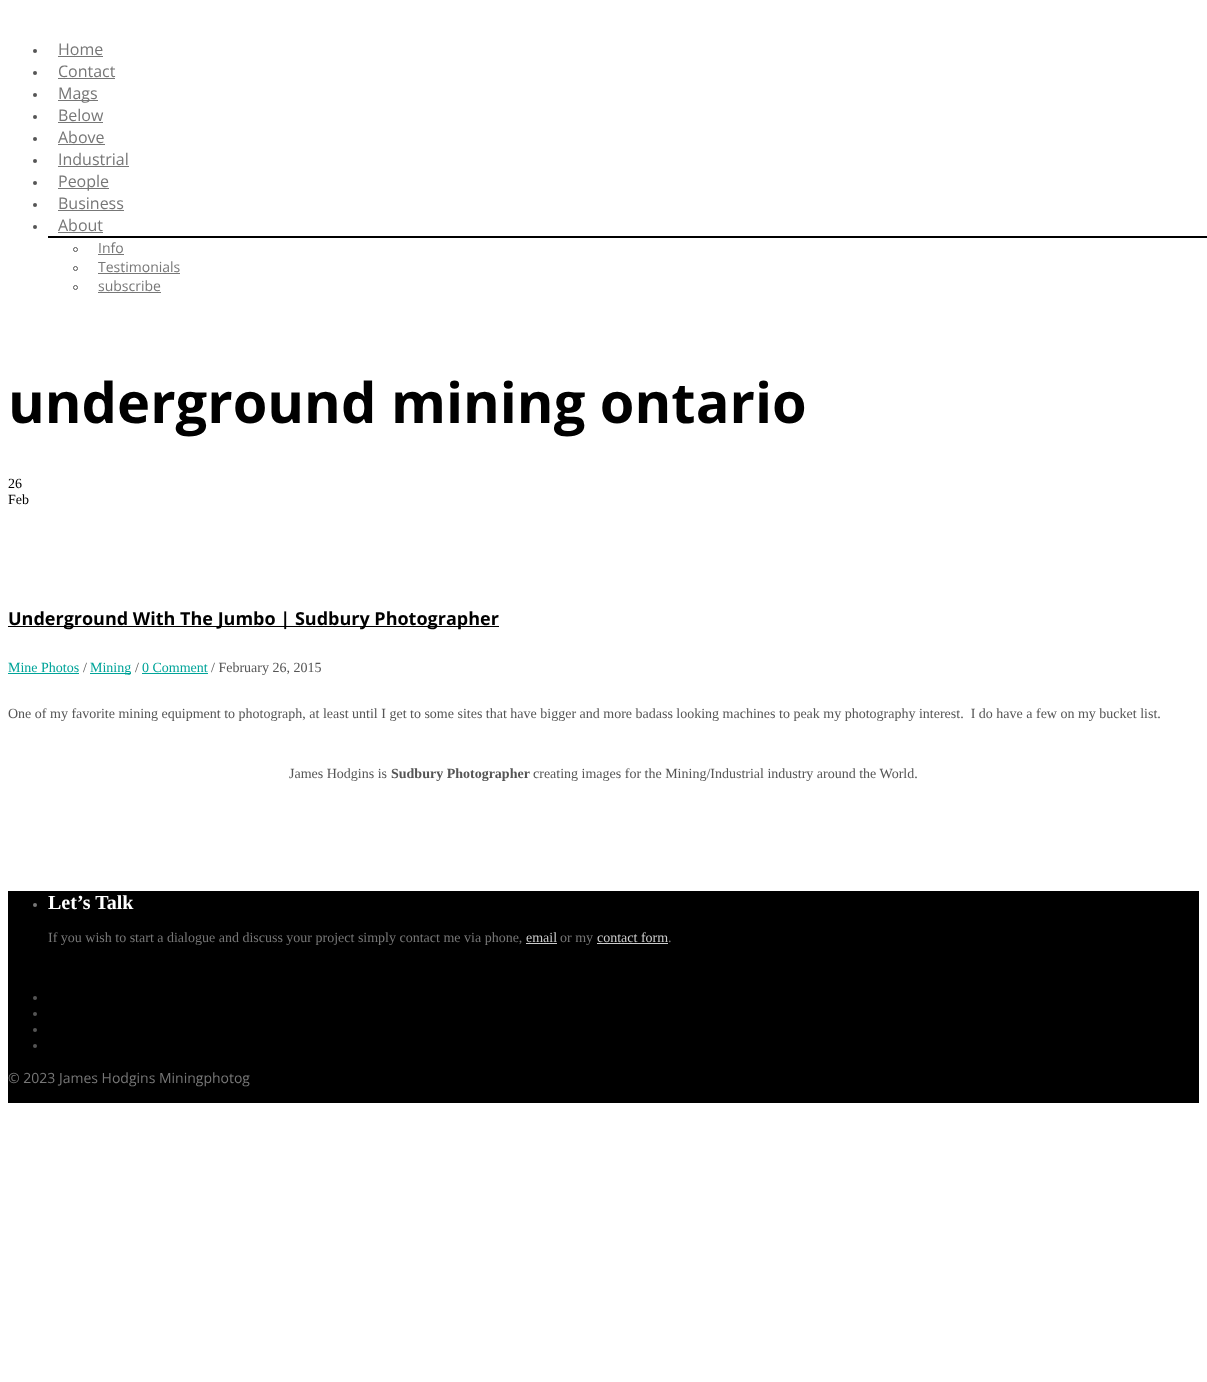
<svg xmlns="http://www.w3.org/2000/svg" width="1207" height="1382">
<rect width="100%" height="100%" fill="#fff"/>
<circle cx="35" cy="51" r="2" fill="#555"/>
<text x="58" y="55" style="font-family:Open Sans;font-size:16px;fill:#777">Home</text>
<rect x="58" y="56" width="45" height="1" fill="#777"/>
<circle cx="35" cy="73" r="2" fill="#555"/>
<text x="58" y="77" style="font-family:Open Sans;font-size:16px;fill:#777">Contact</text>
<rect x="58" y="78" width="57" height="1" fill="#777"/>
<circle cx="35" cy="95" r="2" fill="#555"/>
<rect x="58" y="100" width="40" height="1" fill="#777"/>
<text x="58" y="99" style="font-family:Open Sans;font-size:16px;fill:#777">Mags</text>
<circle cx="35" cy="117" r="2" fill="#555"/>
<text x="58" y="121" style="font-family:Open Sans;font-size:16px;fill:#777">Below</text>
<rect x="58" y="122" width="45" height="1" fill="#777"/>
<circle cx="35" cy="139" r="2" fill="#555"/>
<text x="58" y="143" style="font-family:Open Sans;font-size:16px;fill:#777">Above</text>
<rect x="58" y="144" width="47" height="1" fill="#777"/>
<circle cx="35" cy="161" r="2" fill="#555"/>
<text x="58" y="165" style="font-family:Open Sans;font-size:16px;fill:#777">Industrial</text>
<rect x="58" y="166" width="71" height="1" fill="#777"/>
<circle cx="35" cy="183" r="2" fill="#555"/>
<rect x="58" y="188" width="51" height="1" fill="#777"/>
<text x="58" y="187" style="font-family:Open Sans;font-size:16px;fill:#777">People</text>
<circle cx="35" cy="205" r="2" fill="#555"/>
<text x="58" y="209" style="font-family:Open Sans;font-size:16px;fill:#777">Business</text>
<rect x="58" y="210" width="66" height="1" fill="#777"/>
<circle cx="35" cy="227" r="2" fill="#555"/>
<text x="58" y="231" style="font-family:Open Sans;font-size:16px;fill:#777">About</text>
<rect x="58" y="232" width="45" height="1" fill="#777"/>
<rect x="48" y="236" width="1159" height="2" fill="#000"/>
<circle cx="75.5" cy="249.5" r="2" fill="none" stroke="#555"/>
<text x="98" y="253" style="font-family:Open Sans;font-size:14px;fill:#777">Info</text>
<rect x="98" y="254" width="26" height="1" fill="#777"/>
<circle cx="75.5" cy="268.5" r="2" fill="none" stroke="#555"/>
<text x="98" y="272" style="font-family:Open Sans;font-size:14px;fill:#777">Testimonials</text>
<rect x="98" y="273" width="82" height="1" fill="#777"/>
<circle cx="75.5" cy="287.5" r="2" fill="none" stroke="#555"/>
<text x="98" y="291" style="font-family:Open Sans;font-size:14px;fill:#777">subscribe</text>
<rect x="98" y="292" width="63" height="1" fill="#777"/>
<text x="8" y="423" style="font-family:Open Sans;font-size:56px;font-weight:bold;fill:#000">underground mining ontario</text>
<text x="8" y="488" style="font-family:Liberation Serif;font-size:14px;fill:#000">26</text>
<text x="8" y="504" style="font-family:Liberation Serif;font-size:14px;fill:#000">Feb</text>
<rect x="8" y="626" width="491" height="1" fill="#000"/>
<text x="8" y="625" style="font-family:Open Sans;font-size:18px;font-weight:bold;fill:#000">Underground With The Jumbo | Sudbury Photographer</text>
<text x="8" y="672" style="font-family:Liberation Serif;font-size:14px;fill:#00a499">Mine Photos</text>
<rect x="8" y="673" width="71" height="1" fill="#00a499"/>
<text x="83" y="672" style="font-family:Liberation Serif;font-size:14px;fill:#555">/</text>
<rect x="90" y="673" width="41" height="1" fill="#00a499"/>
<text x="90" y="672" style="font-family:Liberation Serif;font-size:14px;fill:#00a499">Mining</text>
<text x="135" y="672" style="font-family:Liberation Serif;font-size:14px;fill:#555">/</text>
<text x="142" y="672" style="font-family:Liberation Serif;font-size:14px;fill:#00a499">0 Comment</text>
<rect x="142" y="673" width="66" height="1" fill="#00a499"/>
<text x="211" y="672" style="font-family:Liberation Serif;font-size:14px;fill:#555">/ February 26, 2015</text>
<text x="8" y="718" style="font-family:Liberation Serif;font-size:14px;fill:#555" xml:space="preserve">One of my favorite mining equipment to photograph, at least until I get to some sites that have bigger and more badass looking machines to peak my photography interest.  I do have a few on my bucket list.</text>
<text x="289" y="778" style="font-family:Liberation Serif;font-size:14px;fill:#555">James Hodgins is</text>
<text x="391" y="778" style="font-family:Liberation Serif;font-size:14px;font-weight:bold;fill:#555">Sudbury Photographer</text>
<text x="533" y="778" style="font-family:Liberation Serif;font-size:14px;fill:#555">creating images for the Mining/Industrial industry around the World.</text>
<rect x="8" y="891" width="1191" height="212" fill="#000"/>
<circle cx="35" cy="905" r="2" fill="#777"/>
<text x="48" y="909" style="font-family:Liberation Serif;font-size:20px;font-weight:bold;fill:#fff">Let’s Talk</text>
<text x="48" y="942" style="font-family:Liberation Serif;font-size:14px;fill:#777">If you wish to start a dialogue and discuss your project simply contact me via phone,</text>
<text x="526" y="942" style="font-family:Liberation Serif;font-size:14px;fill:#ccc">email</text>
<rect x="526" y="943" width="31" height="1" fill="#ccc"/>
<text x="560" y="942" style="font-family:Liberation Serif;font-size:14px;fill:#777">or my</text>
<text x="597" y="942" style="font-family:Liberation Serif;font-size:14px;fill:#ccc">contact form</text>
<rect x="597" y="943" width="71" height="1" fill="#ccc"/>
<text x="668" y="942" style="font-family:Liberation Serif;font-size:14px;fill:#777">.</text>
<circle cx="35" cy="998" r="2" fill="#555"/>
<circle cx="35" cy="1014" r="2" fill="#555"/>
<circle cx="35" cy="1030" r="2" fill="#555"/>
<circle cx="35" cy="1046" r="2" fill="#555"/>
<text x="8" y="1083" style="font-family:Open Sans;font-size:14px;fill:#777">© 2023 James Hodgins Miningphotog</text>
</svg>
